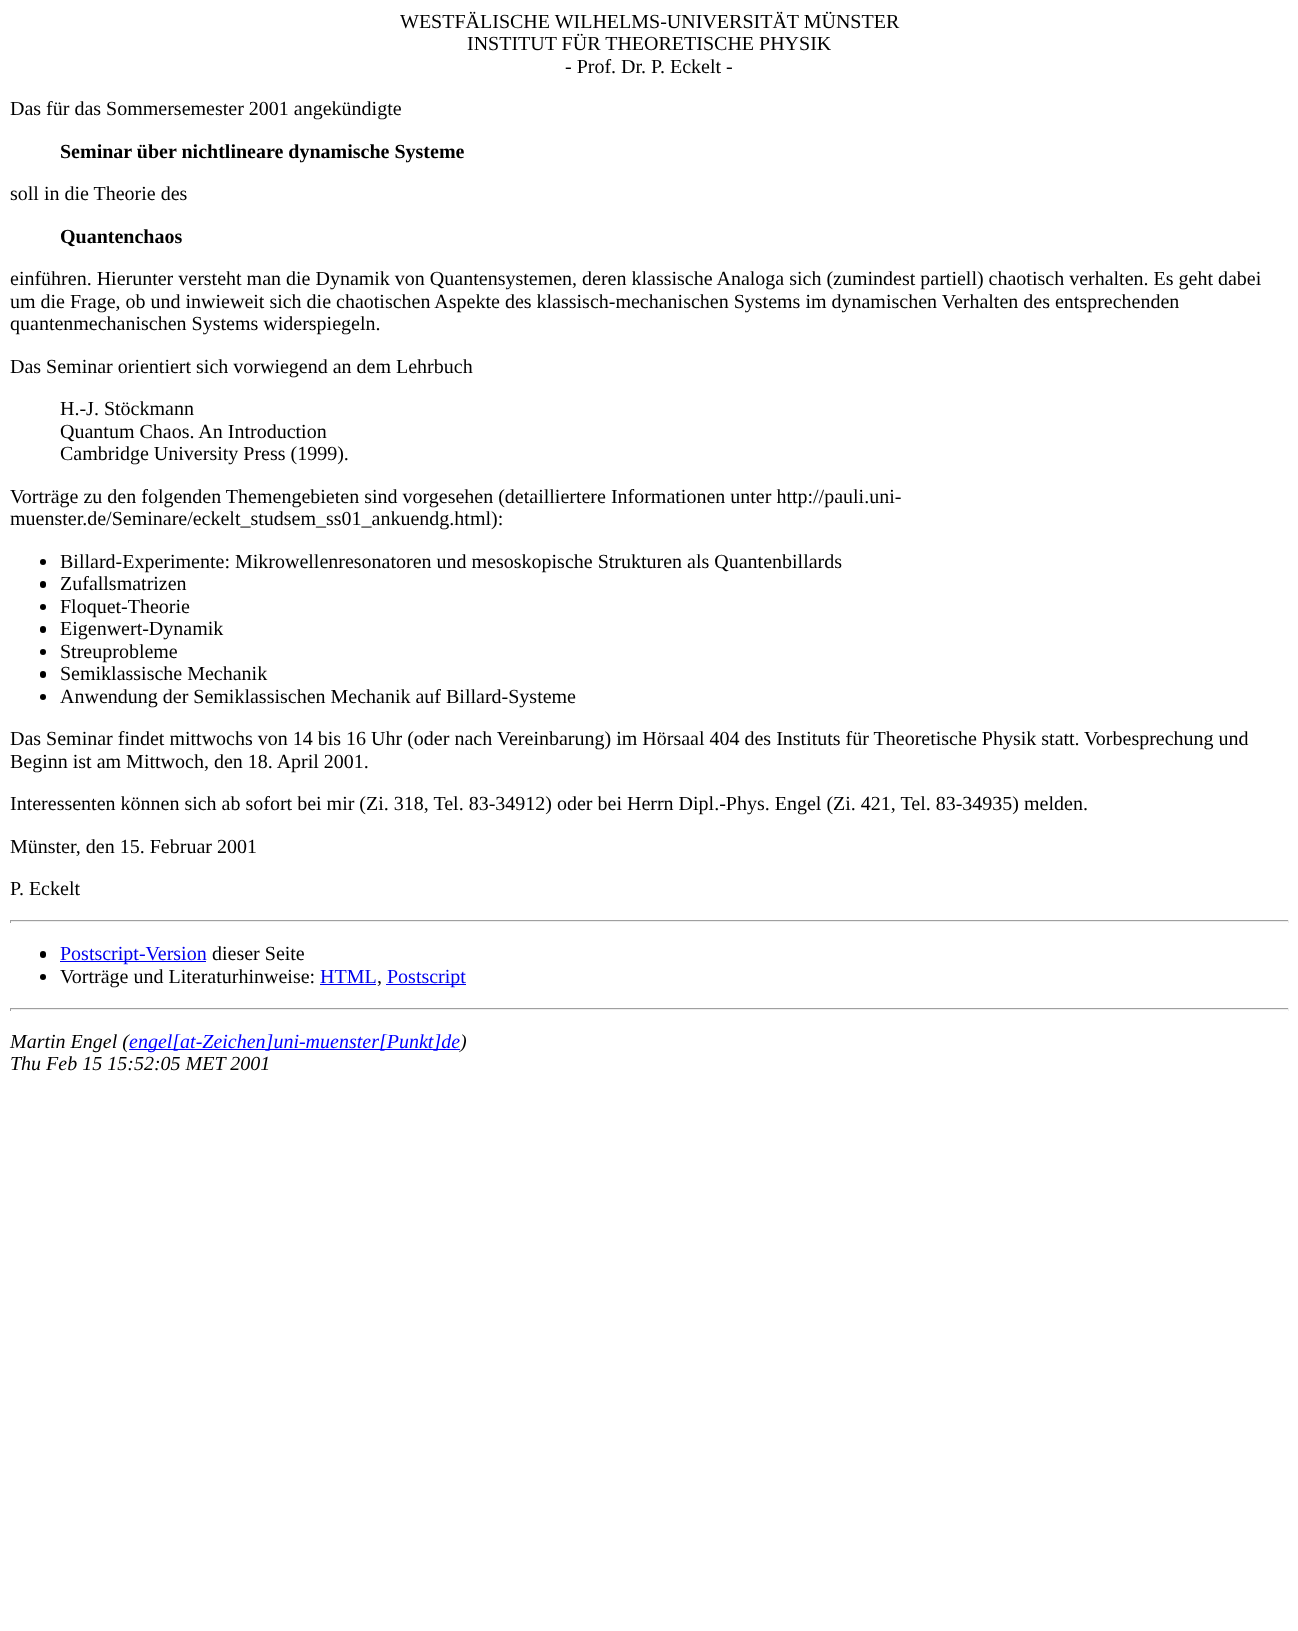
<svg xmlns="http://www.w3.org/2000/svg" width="1298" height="1631">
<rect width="100%" height="100%" fill="#fff"/>
<text x="400" y="28" style="font-family:Liberation Serif;font-size:20px;fill:#000">WESTFÄLISCHE WILHELMS-UNIVERSITÄT MÜNSTER</text>
<text x="467" y="50" style="font-family:Liberation Serif;font-size:20px;fill:#000">INSTITUT FÜR THEORETISCHE PHYSIK</text>
<text x="565" y="73" style="font-family:Liberation Serif;font-size:20px;fill:#000">- Prof. Dr. P. Eckelt -</text>
<text x="10" y="115" style="font-family:Liberation Serif;font-size:20px;fill:#000">Das für das Sommersemester 2001 angekündigte</text>
<text x="60" y="158" style="font-family:Liberation Serif;font-size:20px;font-weight:bold;fill:#000">Seminar über nichtlineare dynamische Systeme</text>
<text x="10" y="200" style="font-family:Liberation Serif;font-size:20px;fill:#000">soll in die Theorie des</text>
<text x="60" y="243" style="font-family:Liberation Serif;font-size:20px;font-weight:bold;fill:#000">Quantenchaos</text>
<text x="10" y="285" style="font-family:Liberation Serif;font-size:20px;fill:#000">einführen. Hierunter versteht man die Dynamik von Quantensystemen, deren klassische Analoga sich (zumindest partiell) chaotisch verhalten. Es geht dabei</text>
<text x="10" y="308" style="font-family:Liberation Serif;font-size:20px;fill:#000">um die Frage, ob und inwieweit sich die chaotischen Aspekte des klassisch-mechanischen Systems im dynamischen Verhalten des entsprechenden</text>
<text x="10" y="330" style="font-family:Liberation Serif;font-size:20px;fill:#000">quantenmechanischen Systems widerspiegeln.</text>
<text x="10" y="373" style="font-family:Liberation Serif;font-size:20px;fill:#000">Das Seminar orientiert sich vorwiegend an dem Lehrbuch</text>
<text x="60" y="415" style="font-family:Liberation Serif;font-size:20px;fill:#000">H.-J. Stöckmann</text>
<text x="60" y="438" style="font-family:Liberation Serif;font-size:20px;fill:#000">Quantum Chaos. An Introduction</text>
<text x="60" y="460" style="font-family:Liberation Serif;font-size:20px;fill:#000">Cambridge University Press (1999).</text>
<text x="10" y="503" style="font-family:Liberation Serif;font-size:20px;fill:#000">Vorträge zu den folgenden Themengebieten sind vorgesehen (detailliertere Informationen unter http://pauli.uni-</text>
<text x="10" y="525" style="font-family:Liberation Serif;font-size:20px;fill:#000">muenster.de/Seminare/eckelt_studsem_ss01_ankuendg.html):</text>
<circle cx="43" cy="562" r="3" fill="#000"/>
<text x="60" y="568" style="font-family:Liberation Serif;font-size:20px;fill:#000">Billard-Experimente: Mikrowellenresonatoren und mesoskopische Strukturen als Quantenbillards</text>
<rect x="40" y="581" width="6" height="7" rx="3" fill="#000"/>
<text x="60" y="590" style="font-family:Liberation Serif;font-size:20px;fill:#000">Zufallsmatrizen</text>
<circle cx="43" cy="607" r="3" fill="#000"/>
<text x="60" y="613" style="font-family:Liberation Serif;font-size:20px;fill:#000">Floquet-Theorie</text>
<rect x="40" y="626" width="6" height="7" rx="3" fill="#000"/>
<text x="60" y="635" style="font-family:Liberation Serif;font-size:20px;fill:#000">Eigenwert-Dynamik</text>
<circle cx="43" cy="652" r="3" fill="#000"/>
<text x="60" y="658" style="font-family:Liberation Serif;font-size:20px;fill:#000">Streuprobleme</text>
<rect x="40" y="671" width="6" height="7" rx="3" fill="#000"/>
<text x="60" y="680" style="font-family:Liberation Serif;font-size:20px;fill:#000">Semiklassische Mechanik</text>
<circle cx="43" cy="697" r="3" fill="#000"/>
<text x="60" y="703" style="font-family:Liberation Serif;font-size:20px;fill:#000">Anwendung der Semiklassischen Mechanik auf Billard-Systeme</text>
<text x="10" y="745" style="font-family:Liberation Serif;font-size:20px;fill:#000">Das Seminar findet mittwochs von 14 bis 16 Uhr (oder nach Vereinbarung) im Hörsaal 404 des Instituts für Theoretische Physik statt.</text>
<text x="1084" y="745" style="font-family:Liberation Serif;font-size:20px;fill:#000">Vorbesprechung und</text>
<text x="10" y="768" style="font-family:Liberation Serif;font-size:20px;fill:#000">Beginn ist am Mittwoch, den 18. April 2001.</text>
<text x="10" y="810" style="font-family:Liberation Serif;font-size:20px;fill:#000">Interessenten können sich ab sofort bei mir (Zi. 318, Tel. 83-34912) oder bei Herrn Dipl.-Phys. Engel (Zi. 421, Tel. 83-34935) melden.</text>
<text x="10" y="853" style="font-family:Liberation Serif;font-size:20px;fill:#000">Münster, den 15. Februar 2001</text>
<text x="10" y="895" style="font-family:Liberation Serif;font-size:20px;fill:#000">P. Eckelt</text>
<rect x="10" y="920" width="1279" height="1" fill="#9f9f9f"/>
<rect x="1288" y="920" width="1" height="3" fill="#eee"/>
<rect x="10" y="921" width="1279" height="1" fill="#eee"/>
<rect x="10" y="920" width="1" height="3" fill="#9f9f9f"/>
<rect x="40" y="951" width="6" height="7" rx="3" fill="#000"/>
<rect x="60" y="961" width="146" height="1" fill="#00e"/>
<text x="60" y="960" style="font-family:Liberation Serif;font-size:20px;fill:#00e">Postscript-Version</text>
<text x="212" y="960" style="font-family:Liberation Serif;font-size:20px;fill:#000">dieser Seite</text>
<circle cx="43" cy="977" r="3" fill="#000"/>
<text x="60" y="983" style="font-family:Liberation Serif;font-size:20px;fill:#000">Vorträge und Literaturhinweise:</text>
<text x="320" y="983" style="font-family:Liberation Serif;font-size:20px;fill:#00e">HTML</text>
<rect x="320" y="984" width="56" height="1" fill="#00e"/>
<rect x="386" y="984" width="80" height="1" fill="#00e"/>
<text x="387" y="983" style="font-family:Liberation Serif;font-size:20px;fill:#00e">Postscript</text>
<text x="377" y="983" style="font-family:Liberation Serif;font-size:20px;fill:#000">,</text>
<rect x="10" y="1008" width="1279" height="1" fill="#9f9f9f"/>
<rect x="1288" y="1008" width="1" height="3" fill="#eee"/>
<rect x="10" y="1009" width="1279" height="1" fill="#eee"/>
<rect x="10" y="1008" width="1" height="3" fill="#9f9f9f"/>
<text x="10" y="1048" style="font-family:Liberation Serif;font-size:20px;font-style:italic;fill:#000">Martin Engel (</text>
<rect x="129" y="1049" width="322" height="1" fill="#00f"/>
<text x="129" y="1048" style="font-family:Liberation Serif;font-size:20px;font-style:italic;fill:#00f">engel[at-Zeichen]uni-muenster[Punkt]de</text>
<rect x="451" y="1049" width="9" height="1" fill="#00f"/>
<text x="460" y="1048" style="font-family:Liberation Serif;font-size:20px;font-style:italic;fill:#000">)</text>
<text x="10" y="1070" style="font-family:Liberation Serif;font-size:20px;font-style:italic;fill:#000">Thu Feb 15 15:52:05 MET 2001</text>
</svg>
